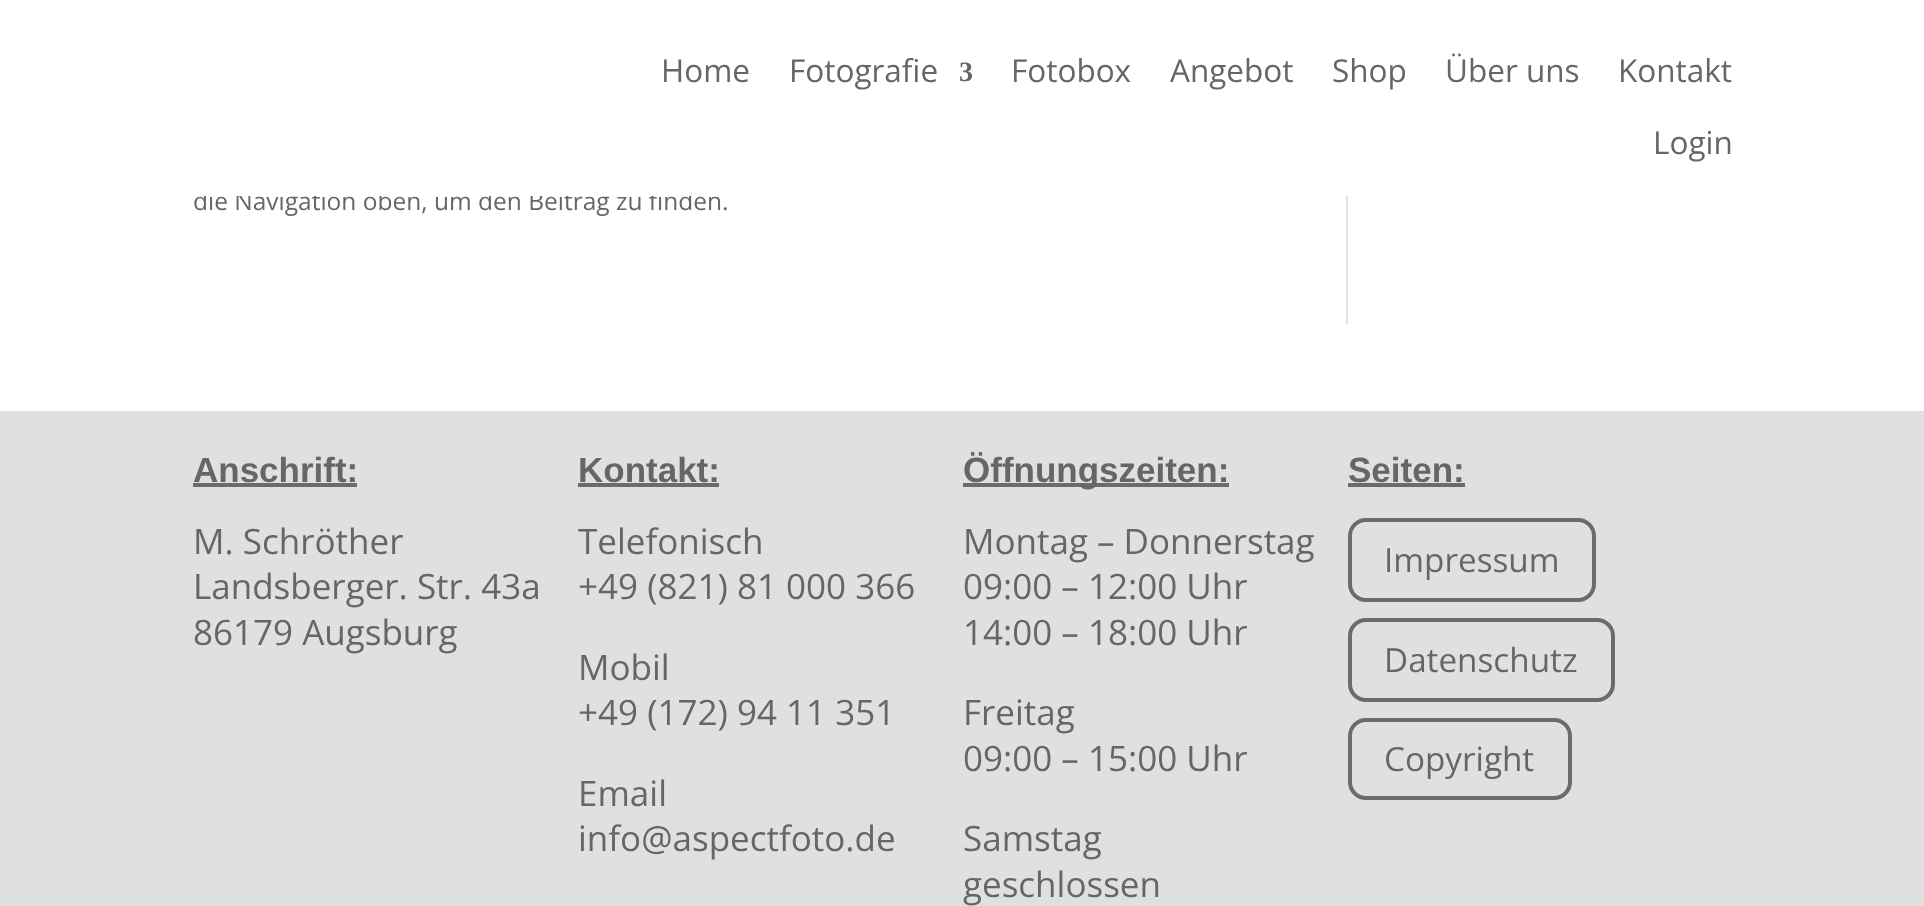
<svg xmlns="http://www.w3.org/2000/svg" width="1924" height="906">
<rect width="100%" height="100%" fill="#fff"/>
<text x="193" y="210" style="font-family:Open Sans;font-size:24.5px;fill:#666">die Navigation oben, um den Beitrag zu finden.</text>
<rect x="203" y="191" width="488" height="5" fill="#fff"/>
<text x="661" y="82" style="font-family:Open Sans;font-size:31.5px;fill:#666">Home</text>
<text x="789" y="82" style="font-family:Open Sans;font-size:31.5px;fill:#666">Fotografie</text>
<text x="959" y="81" style="font-family:Liberation Serif;font-size:28px;font-weight:bold;fill:#666">3</text>
<text x="1011" y="82" style="font-family:Open Sans;font-size:31.5px;fill:#666">Fotobox</text>
<text x="1170" y="82" style="font-family:Open Sans;font-size:31.5px;fill:#666">Angebot</text>
<text x="1332" y="82" style="font-family:Open Sans;font-size:31.5px;fill:#666">Shop</text>
<text x="1445" y="82" style="font-family:Open Sans;font-size:31.5px;fill:#666">Über uns</text>
<text x="1618" y="82" style="font-family:Open Sans;font-size:31.5px;fill:#666">Kontakt</text>
<text x="1653" y="154" style="font-family:Open Sans;font-size:31.5px;fill:#666">Login</text>
<rect x="1346" y="196" width="2" height="128" fill="#e2e2e2"/>
<rect y="411" width="1924" height="495" fill="#e0e0e0"/>
<text x="193" y="482" style="font-family:Liberation Sans;font-size:35px;font-weight:bold;fill:#666">Anschrift:</text>
<rect x="193" y="483" width="164" height="4" fill="#6b6b6b"/>
<text x="193" y="554" style="font-family:Open Sans;font-size:35px;fill:#666">M. Schröther</text>
<text x="193" y="599" style="font-family:Open Sans;font-size:35px;fill:#666">Landsberger. Str. 43a</text>
<text x="193" y="645" style="font-family:Open Sans;font-size:35px;fill:#666">86179 Augsburg</text>
<text x="578" y="482" style="font-family:Liberation Sans;font-size:35px;font-weight:bold;fill:#666">Kontakt:</text>
<rect x="578" y="483" width="141" height="4" fill="#6b6b6b"/>
<text x="578" y="554" style="font-family:Open Sans;font-size:35px;fill:#666">Telefonisch</text>
<text x="578" y="599" style="font-family:Open Sans;font-size:35px;fill:#666">+49 (821) 81 000 366</text>
<text x="578" y="680" style="font-family:Open Sans;font-size:35px;fill:#666">Mobil</text>
<text x="578" y="725" style="font-family:Open Sans;font-size:35px;fill:#666">+49 (172) 94 11 351</text>
<text x="578" y="806" style="font-family:Open Sans;font-size:35px;fill:#666">Email</text>
<text x="578" y="851" style="font-family:Open Sans;font-size:35px;fill:#666">info@aspectfoto.de</text>
<rect x="963" y="483" width="266" height="4" fill="#6b6b6b"/>
<text x="963" y="482" style="font-family:Liberation Sans;font-size:35px;font-weight:bold;fill:#666">Öffnungszeiten:</text>
<text x="963" y="554" style="font-family:Open Sans;font-size:35px;fill:#666">Montag – Donnerstag</text>
<text x="963" y="599" style="font-family:Open Sans;font-size:35px;fill:#666">09:00 – 12:00 Uhr</text>
<text x="963" y="645" style="font-family:Open Sans;font-size:35px;fill:#666">14:00 – 18:00 Uhr</text>
<text x="963" y="725" style="font-family:Open Sans;font-size:35px;fill:#666">Freitag</text>
<text x="963" y="771" style="font-family:Open Sans;font-size:35px;fill:#666">09:00 – 15:00 Uhr</text>
<text x="963" y="851" style="font-family:Open Sans;font-size:35px;fill:#666">Samstag</text>
<text x="963" y="897" style="font-family:Open Sans;font-size:35px;fill:#666">geschlossen</text>
<text x="1348" y="482" style="font-family:Liberation Sans;font-size:35px;font-weight:bold;fill:#666">Seiten:</text>
<rect x="1348" y="483" width="117" height="4" fill="#6b6b6b"/>
<rect x="1350" y="520" width="244" height="80" rx="16" fill="none" stroke="#6b6b6b" stroke-width="4"/>
<text x="1384" y="572" style="font-family:Open Sans;font-size:33.25px;fill:#666">Impressum</text>
<rect x="1350" y="620" width="263" height="80" rx="16" fill="none" stroke="#6b6b6b" stroke-width="4"/>
<text x="1384" y="672" style="font-family:Open Sans;font-size:33.25px;fill:#666">Datenschutz</text>
<rect x="1350" y="720" width="220" height="78" rx="16" fill="none" stroke="#6b6b6b" stroke-width="4"/>
<text x="1384" y="771" style="font-family:Open Sans;font-size:33.25px;fill:#666">Copyright</text>
</svg>
